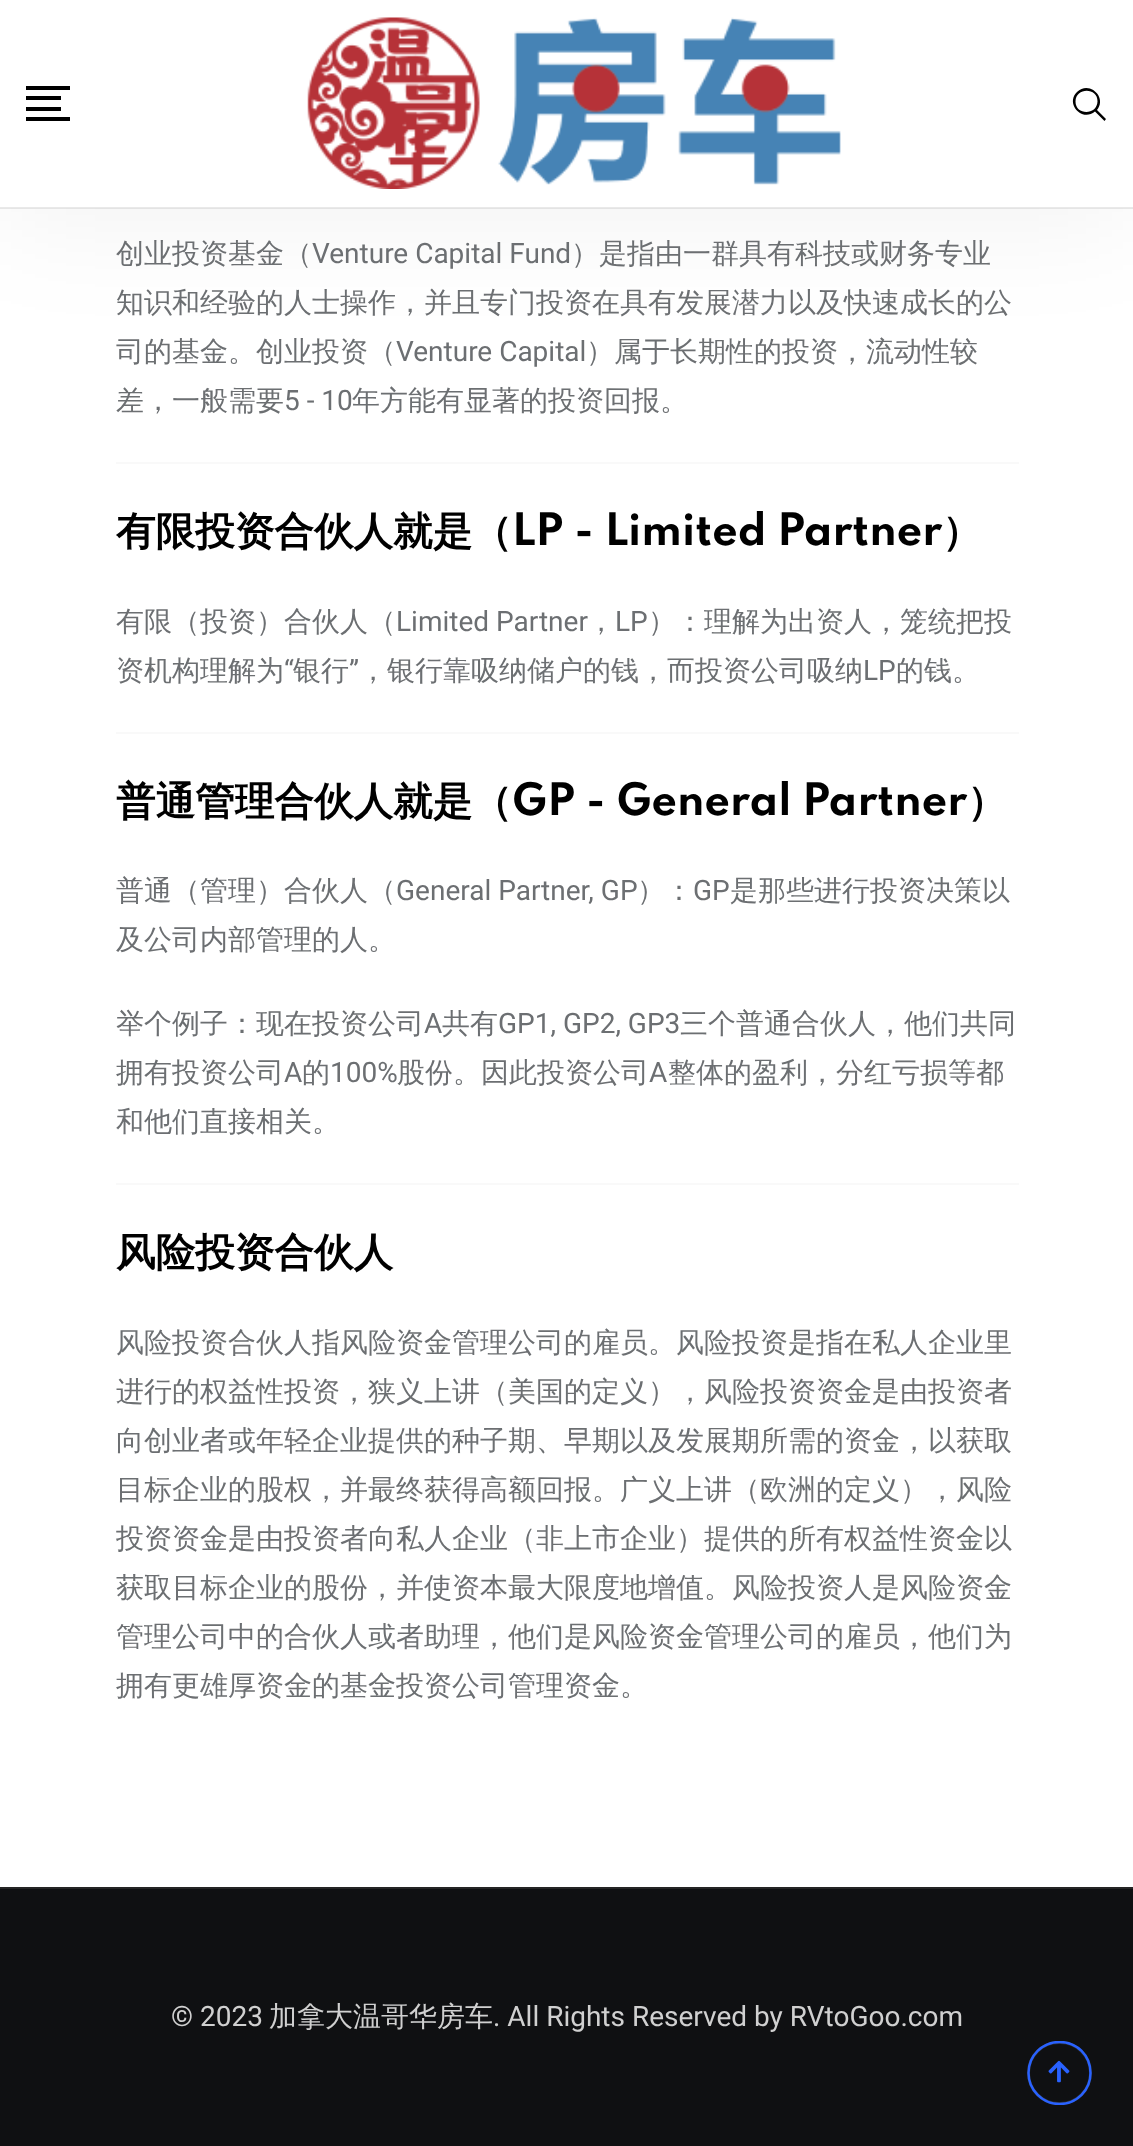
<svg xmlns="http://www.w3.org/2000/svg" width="1133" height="2146">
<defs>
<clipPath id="clip1"><rect x="1027" y="2041" width="65" height="64"/></clipPath>
</defs>
<rect width="100%" height="100%" fill="#fff"/>
<rect y="12" width="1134" height="209" fill="#0000000d" filter="blur(57px)"/>
<rect width="1133" height="208" fill="#fff"/>
<rect y="207" width="1133" height="2" fill="#b5b5b54d"/>
<rect x="26" y="86" width="44" height="4" fill="#000"/>
<rect x="26" y="96" width="35" height="4" fill="#000"/>
<rect x="26" y="107" width="35" height="4" fill="#000"/>
<rect x="26" y="117" width="44" height="4" fill="#000"/>
<image x="307" y="17" width="534" height="172" href="media/1.png"/>
<path d="M1106 119l-9-9c10.5-13-8-30-20-18c-12 11.5 5 30.5 18 19.5l9.5 9.5zm-30.5-17.5c0-14.5 22.5-14.5 22 0c-.5 14-22 14-22 0z" fill="#000"/>
<text x="116" y="263" style="font-family:WenQuanYi Zen Hei;font-size:28px;font-weight:500;fill:#6c6f72">创业投资基金（</text>
<text x="312" y="263" style="font-family:Roboto;font-size:28px;fill:#6c6f72">Venture Capital Fund</text>
<text x="571" y="263" style="font-family:WenQuanYi Zen Hei;font-size:28px;font-weight:500;fill:#6c6f72">）是指由一群具有科技或财务专业</text>
<text x="116" y="312" style="font-family:WenQuanYi Zen Hei;font-size:28px;font-weight:500;fill:#6c6f72">知识和经验的人士操作，并且专门投资在具有发展潜力以及快速成长的公</text>
<text x="116" y="361" style="font-family:WenQuanYi Zen Hei;font-size:28px;font-weight:500;fill:#6c6f72">司的基金。创业投资（</text>
<text x="396" y="361" style="font-family:Roboto;font-size:28px;fill:#6c6f72">Venture Capital</text>
<text x="586" y="361" style="font-family:WenQuanYi Zen Hei;font-size:28px;font-weight:500;fill:#6c6f72">）属于长期性的投资，流动性较</text>
<text x="116" y="410" style="font-family:WenQuanYi Zen Hei;font-size:28px;font-weight:500;fill:#6c6f72">差，一般需要</text>
<text x="284" y="410" style="font-family:Roboto;font-size:28px;fill:#6c6f72">5 - 10</text>
<text x="352" y="410" style="font-family:WenQuanYi Zen Hei;font-size:28px;font-weight:500;fill:#6c6f72">年方能有显著的投资回报。</text>
<rect x="116" y="462" width="903" height="2" fill="#f9f9f9"/>
<text x="116" y="545" style="font-family:WenQuanYi Zen Hei;font-size:39.6px;font-weight:bold;fill:#000">有限投资合伙人就是（</text>
<text x="512" y="545" style="font-family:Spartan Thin;font-size:39.6px;font-weight:bold;fill:#000">LP - Limited Partner</text>
<text x="942" y="545" style="font-family:WenQuanYi Zen Hei;font-size:39.6px;font-weight:bold;fill:#000">）</text>
<text x="116" y="631" style="font-family:WenQuanYi Zen Hei;font-size:28px;font-weight:500;fill:#6c6f72">有限（投资）合伙人（</text>
<text x="396" y="631" style="font-family:Roboto;font-size:28px;fill:#6c6f72">Limited Partner</text>
<text x="587" y="631" style="font-family:WenQuanYi Zen Hei;font-size:28px;font-weight:500;fill:#6c6f72">，</text>
<text x="615" y="631" style="font-family:Roboto;font-size:28px;fill:#6c6f72">LP</text>
<text x="648" y="631" style="font-family:WenQuanYi Zen Hei;font-size:28px;font-weight:500;fill:#6c6f72">）：理解为出资人，笼统把投</text>
<text x="116" y="680" style="font-family:WenQuanYi Zen Hei;font-size:28px;font-weight:500;fill:#6c6f72">资机构理解为</text>
<text x="284" y="680" style="font-family:Roboto;font-size:28px;fill:#6c6f72">“</text>
<text x="293" y="680" style="font-family:WenQuanYi Zen Hei;font-size:28px;font-weight:500;fill:#6c6f72">银行</text>
<text x="349" y="680" style="font-family:Roboto;font-size:28px;fill:#6c6f72">”</text>
<text x="359" y="680" style="font-family:WenQuanYi Zen Hei;font-size:28px;font-weight:500;fill:#6c6f72">，银行靠吸纳储户的钱，而投资公司吸纳</text>
<text x="863" y="680" style="font-family:Roboto;font-size:28px;fill:#6c6f72">LP</text>
<text x="896" y="680" style="font-family:WenQuanYi Zen Hei;font-size:28px;font-weight:500;fill:#6c6f72">的钱。</text>
<rect x="116" y="732" width="903" height="2" fill="#f9f9f9"/>
<text x="116" y="815" style="font-family:WenQuanYi Zen Hei;font-size:39.6px;font-weight:bold;fill:#000">普通管理合伙人就是（</text>
<text x="512" y="815" style="font-family:Spartan Thin;font-size:39.6px;font-weight:bold;fill:#000">GP - General Partner</text>
<text x="967" y="815" style="font-family:WenQuanYi Zen Hei;font-size:39.6px;font-weight:bold;fill:#000">）</text>
<text x="116" y="900" style="font-family:WenQuanYi Zen Hei;font-size:28px;font-weight:500;fill:#6c6f72">普通（管理）合伙人（</text>
<text x="396" y="900" style="font-family:Roboto;font-size:28px;fill:#6c6f72">General Partner, GP</text>
<text x="637" y="900" style="font-family:WenQuanYi Zen Hei;font-size:28px;font-weight:500;fill:#6c6f72">）：</text>
<text x="693" y="900" style="font-family:Roboto;font-size:28px;fill:#6c6f72">GP</text>
<text x="730" y="900" style="font-family:WenQuanYi Zen Hei;font-size:28px;font-weight:500;fill:#6c6f72">是那些进行投资决策以</text>
<text x="116" y="949" style="font-family:WenQuanYi Zen Hei;font-size:28px;font-weight:500;fill:#6c6f72">及公司内部管理的人。</text>
<text x="116" y="1033" style="font-family:WenQuanYi Zen Hei;font-size:28px;font-weight:500;fill:#6c6f72">举个例子：现在投资公司</text>
<text x="424" y="1033" style="font-family:Roboto;font-size:28px;fill:#6c6f72">A</text>
<text x="442" y="1033" style="font-family:WenQuanYi Zen Hei;font-size:28px;font-weight:500;fill:#6c6f72">共有</text>
<text x="498" y="1033" style="font-family:Roboto;font-size:28px;fill:#6c6f72">GP1, GP2, GP3</text>
<text x="680" y="1033" style="font-family:WenQuanYi Zen Hei;font-size:28px;font-weight:500;fill:#6c6f72">三个普通合伙人，他们共同</text>
<text x="116" y="1082" style="font-family:WenQuanYi Zen Hei;font-size:28px;font-weight:500;fill:#6c6f72">拥有投资公司</text>
<text x="284" y="1082" style="font-family:Roboto;font-size:28px;fill:#6c6f72">A</text>
<text x="302" y="1082" style="font-family:WenQuanYi Zen Hei;font-size:28px;font-weight:500;fill:#6c6f72">的</text>
<text x="330" y="1082" style="font-family:Roboto;font-size:28px;fill:#6c6f72">100%</text>
<text x="397" y="1082" style="font-family:WenQuanYi Zen Hei;font-size:28px;font-weight:500;fill:#6c6f72">股份。因此投资公司</text>
<text x="649" y="1082" style="font-family:Roboto;font-size:28px;fill:#6c6f72">A</text>
<text x="668" y="1082" style="font-family:WenQuanYi Zen Hei;font-size:28px;font-weight:500;fill:#6c6f72">整体的盈利，分红亏损等都</text>
<text x="116" y="1131" style="font-family:WenQuanYi Zen Hei;font-size:28px;font-weight:500;fill:#6c6f72">和他们直接相关。</text>
<rect x="116" y="1183" width="903" height="2" fill="#f9f9f9"/>
<text x="116" y="1266" style="font-family:WenQuanYi Zen Hei;font-size:39.6px;font-weight:bold;fill:#000">风险投资合伙人</text>
<text x="116" y="1352" style="font-family:WenQuanYi Zen Hei;font-size:28px;font-weight:500;fill:#6c6f72">风险投资合伙人指风险资金管理公司的雇员。风险投资是指在私人企业里</text>
<text x="116" y="1401" style="font-family:WenQuanYi Zen Hei;font-size:28px;font-weight:500;fill:#6c6f72">进行的权益性投资，狭义上讲（美国的定义），风险投资资金是由投资者</text>
<text x="116" y="1450" style="font-family:WenQuanYi Zen Hei;font-size:28px;font-weight:500;fill:#6c6f72">向创业者或年轻企业提供的种子期、早期以及发展期所需的资金，以获取</text>
<text x="116" y="1499" style="font-family:WenQuanYi Zen Hei;font-size:28px;font-weight:500;fill:#6c6f72">目标企业的股权，并最终获得高额回报。广义上讲（欧洲的定义），风险</text>
<text x="116" y="1548" style="font-family:WenQuanYi Zen Hei;font-size:28px;font-weight:500;fill:#6c6f72">投资资金是由投资者向私人企业（非上市企业）提供的所有权益性资金以</text>
<text x="116" y="1597" style="font-family:WenQuanYi Zen Hei;font-size:28px;font-weight:500;fill:#6c6f72">获取目标企业的股份，并使资本最大限度地增值。风险投资人是风险资金</text>
<text x="116" y="1646" style="font-family:WenQuanYi Zen Hei;font-size:28px;font-weight:500;fill:#6c6f72">管理公司中的合伙人或者助理，他们是风险资金管理公司的雇员，他们为</text>
<text x="116" y="1695" style="font-family:WenQuanYi Zen Hei;font-size:28px;font-weight:500;fill:#6c6f72">拥有更雄厚资金的基金投资公司管理资金。</text>
<rect y="1889" width="1133" height="257" fill="#0f1012"/>
<rect y="1887" width="1133" height="2" fill="#252525"/>
<text x="171" y="2026" style="font-family:Roboto;font-size:28px;fill:#d0d0d0">© 2023</text>
<text x="269" y="2026" style="font-family:WenQuanYi Zen Hei;font-size:28px;font-weight:500;fill:#d0d0d0">加拿大温哥华房车</text>
<text x="493" y="2026" style="font-family:Roboto;font-size:28px;fill:#d0d0d0">. All Rights Reserved by RVtoGoo.com</text>
<rect x="1028.5" y="2042.5" width="62" height="61" rx="30.5" fill="none" stroke="#2b2d2f" stroke-width="3"/>
<g clip-path="url(#clip1)">
<path d="M1059.5 2042c17.5 0 31 13.5 31 31c0 17-13.5 31-31 31c-17 0-31-14-31-31c0-17.5 14-31 31-31" fill="none" stroke="#2962ff" stroke-width="2.5"/>
</g>
<image x="1048" y="2060" width="22" height="23" href="media/2.png"/>
</svg>
